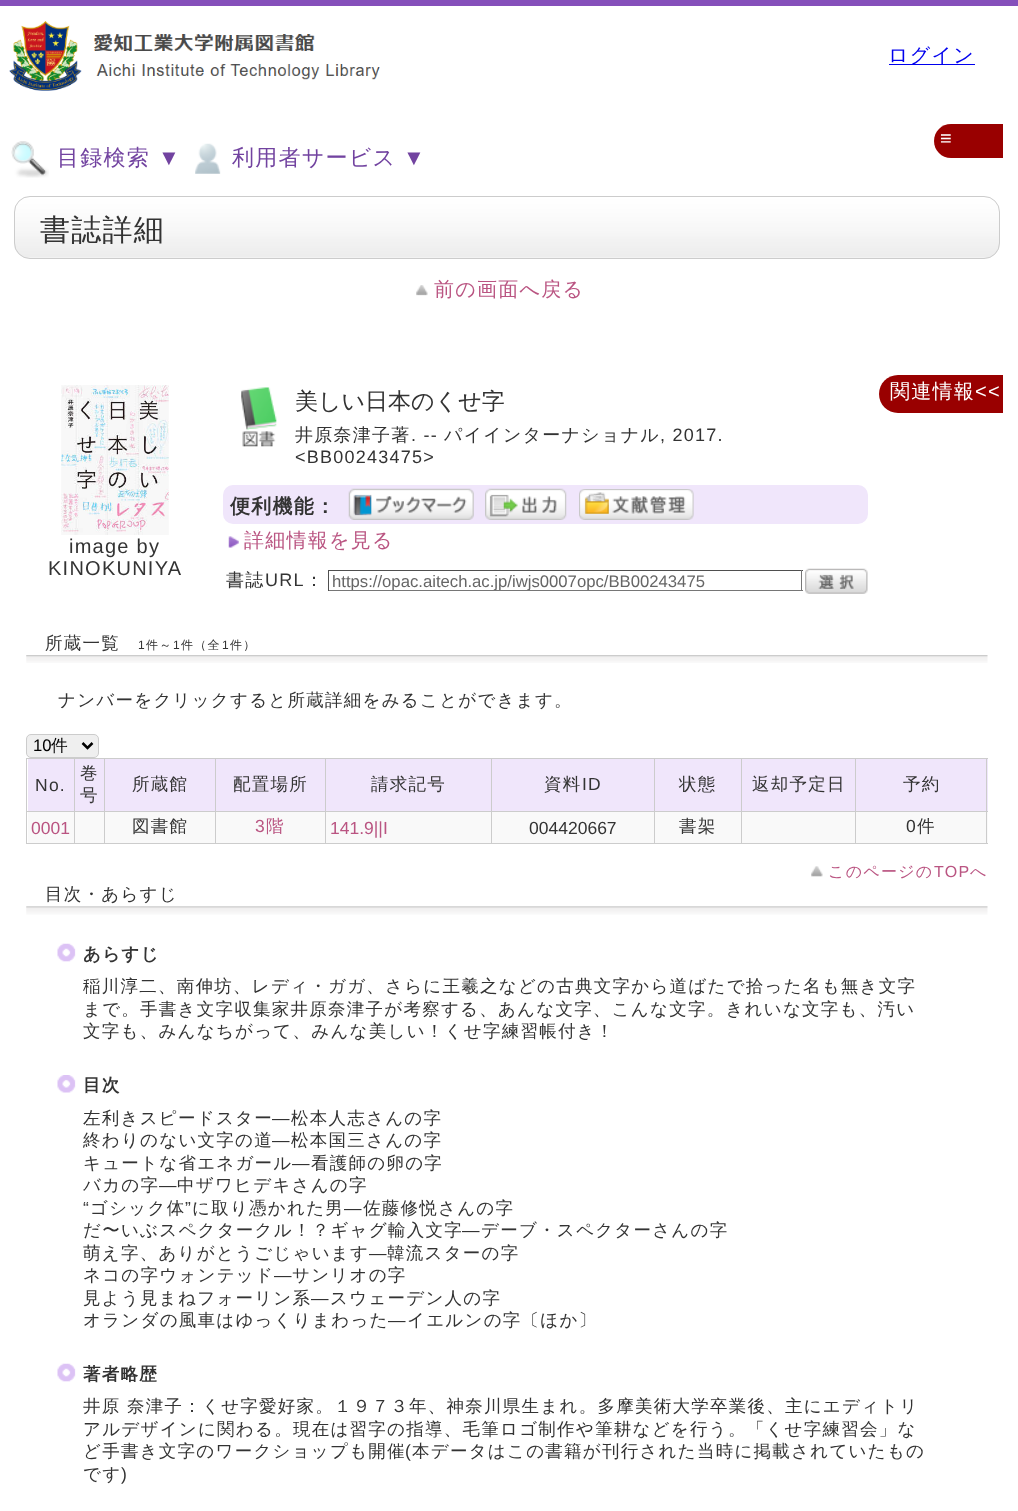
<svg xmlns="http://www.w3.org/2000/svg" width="1018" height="1511">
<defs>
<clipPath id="clip1"><rect x="333" y="571" width="468" height="19"/></clipPath>
</defs>
<rect width="100%" height="100%" fill="#fff"/>
<rect width="1018" height="6" fill="#854fba"/>
<image x="9" y="21" width="371" height="70" href="media/1.png"/>
<rect x="889" y="64" width="86" height="1" fill="#00e"/>
<text x="888" y="62" style="font-family:WenQuanYi Zen Hei;font-size:20px;font-weight:500;letter-spacing:1.25px;fill:#00e">ログイン</text>
<path d="M951 124h52v34h-52c-9.5 0-17-7.5-17-17c0-9.5 7.5-17 17-17z" fill="#900"/>
<text x="940" y="145" style="font-family:Liberation Sans;font-size:20px;letter-spacing:1.25px;fill:#fff">≡</text>
<image x="11" y="141" width="38" height="37" href="media/2.png"/>
<text x="57" y="165" style="font-family:WenQuanYi Zen Hei;font-size:22px;font-weight:500;letter-spacing:1.25px;fill:#7243a0">目録検索</text>
<text x="158" y="165" style="font-family:Liberation Sans;font-size:22px;letter-spacing:1.25px;fill:#7243a0">▼</text>
<image x="195" y="143" width="26" height="31" href="media/3.png"/>
<text x="232" y="165" style="font-family:WenQuanYi Zen Hei;font-size:22px;font-weight:500;letter-spacing:1.25px;fill:#7243a0">利用者サービス</text>
<text x="403" y="165" style="font-family:Liberation Sans;font-size:22px;letter-spacing:1.25px;fill:#7243a0">▼</text>
<rect x="14" y="196" width="986" height="63" rx="16" fill="#f6f6f6"/>
<image x="14" y="196" width="986" height="62" href="media/4.png"/>
<rect x="14.5" y="196.5" width="985" height="62" rx="15.5" fill="none" stroke="#ccc"/>
<text x="40" y="240" style="font-family:WenQuanYi Zen Hei;font-size:30px;font-weight:500;letter-spacing:1.25px;fill:#333">書誌詳細</text>
<image x="416" y="285" width="12" height="11" href="media/5.png"/>
<text x="434" y="296" style="font-family:WenQuanYi Zen Hei;font-size:20px;font-weight:500;letter-spacing:1.25px;fill:#ba5582">前の画面へ戻る</text>
<image x="61" y="385" width="108" height="150" href="media/6.png"/>
<text x="69" y="553" style="font-family:Liberation Sans;font-size:20px;letter-spacing:1.25px;fill:#333">image by</text>
<text x="48" y="575" style="font-family:Liberation Sans;font-size:20px;letter-spacing:1.25px;fill:#333">KINOKUNIYA</text>
<image x="241" y="387" width="36" height="60" href="media/7.png"/>
<text x="295" y="409" style="font-family:WenQuanYi Zen Hei;font-size:23px;font-weight:500;fill:#333">美しい日本のくせ字</text>
<text x="295" y="441" style="font-family:WenQuanYi Zen Hei;font-size:18px;font-weight:500;letter-spacing:1.25px;fill:#333">井原奈津子著</text>
<text x="411" y="441" style="font-family:Liberation Sans;font-size:18px;letter-spacing:1.25px;fill:#333">. --</text>
<text x="444" y="441" style="font-family:WenQuanYi Zen Hei;font-size:18px;font-weight:500;letter-spacing:1.25px;fill:#333">パイインターナショナル</text>
<text x="660" y="441" style="font-family:Liberation Sans;font-size:18px;letter-spacing:1.25px;fill:#333">, 2017.</text>
<text x="295" y="463" style="font-family:Liberation Sans;font-size:18px;letter-spacing:1.25px;fill:#333">&lt;BB00243475&gt;</text>
<rect x="223" y="485" width="645" height="39" rx="10" fill="#f0e6fb"/>
<text x="230" y="513" style="font-family:WenQuanYi Zen Hei;font-size:20px;font-weight:bold;letter-spacing:1.25px;fill:#333">便利機能：</text>
<image x="348" y="488" width="126" height="32" href="media/8.png"/>
<image x="485" y="488" width="82" height="32" href="media/9.png"/>
<image x="579" y="489" width="115" height="31" href="media/10.png"/>
<image x="228" y="536" width="11" height="12" href="media/11.png"/>
<text x="244" y="547" style="font-family:WenQuanYi Zen Hei;font-size:20px;font-weight:500;letter-spacing:1.25px;fill:#ba5582">詳細情報を見る</text>
<text x="226" y="586" style="font-family:WenQuanYi Zen Hei;font-size:18px;font-weight:500;letter-spacing:1.25px;fill:#333">書誌</text>
<text x="265" y="586" style="font-family:Liberation Sans;font-size:18px;letter-spacing:1.25px;fill:#333">URL</text>
<text x="305" y="586" style="font-family:WenQuanYi Zen Hei;font-size:18px;font-weight:500;letter-spacing:1.25px;fill:#333">：</text>
<rect x="328" y="570" width="475" height="1" fill="#4f4f4f"/>
<rect x="801" y="570" width="1" height="21" fill="#767676"/>
<rect x="328" y="590" width="475" height="1" fill="#767676"/>
<rect x="328" y="570" width="1" height="21" fill="#4f4f4f"/>
<g clip-path="url(#clip1)">
<text x="332" y="587" style="font-family:Liberation Sans;font-size:16.7px;fill:#666">https://opac.aitech.ac.jp/iwjs0007opc/BB00243475</text>
</g>
<image x="805" y="568" width="63" height="26" href="media/12.png"/>
<image x="26" y="655" width="962" height="8" href="media/13.png"/>
<text x="45" y="649" style="font-family:WenQuanYi Zen Hei;font-size:17.5px;font-weight:500;letter-spacing:1.25px;fill:#333">所蔵一覧</text>
<text x="138" y="649" style="font-family:Liberation Sans;font-size:12px;letter-spacing:1.25px;fill:#333">1</text>
<text x="146" y="649" style="font-family:WenQuanYi Zen Hei;font-size:12px;font-weight:500;letter-spacing:1.25px;fill:#333">件～</text>
<text x="173" y="649" style="font-family:Liberation Sans;font-size:12px;letter-spacing:1.25px;fill:#333">1</text>
<text x="181" y="649" style="font-family:WenQuanYi Zen Hei;font-size:12px;font-weight:500;letter-spacing:1.25px;fill:#333">件（全</text>
<text x="222" y="649" style="font-family:Liberation Sans;font-size:12px;letter-spacing:1.25px;fill:#333">1</text>
<text x="230" y="649" style="font-family:WenQuanYi Zen Hei;font-size:12px;font-weight:500;letter-spacing:1.25px;fill:#333">件）</text>
<text x="58" y="706" style="font-family:WenQuanYi Zen Hei;font-size:17.5px;font-weight:500;letter-spacing:1.25px;fill:#333">ナンバーをクリックすると所蔵詳細をみることができます。</text>
<rect x="26.5" y="734.5" width="72" height="23" rx="4.5" fill="#efefef" stroke="#ccc"/>
<path d="M82.5 743l5 5l5-5" fill="none" stroke="#000" stroke-width="2.5"/>
<text x="33" y="751" style="font-family:Liberation Sans;font-size:16.7px;fill:#000">10</text>
<text x="51" y="751" style="font-family:WenQuanYi Zen Hei;font-size:16.7px;font-weight:500;fill:#000">件</text>
<rect x="26" y="758" width="962" height="1" fill="#ccc"/>
<rect x="856" y="759" width="132" height="52" fill="#f0e6fb"/>
<rect x="856" y="812" width="132" height="31" fill="#f9f9f9"/>
<rect x="986" y="758" width="1" height="86" fill="#ccc"/>
<rect x="26" y="843" width="962" height="1" fill="#ccc"/>
<rect x="26" y="758" width="1" height="86" fill="#ccc"/>
<rect x="28" y="759" width="46" height="52" fill="#f0e6fb"/>
<text x="35" y="791" style="font-family:Liberation Sans;font-size:17.5px;letter-spacing:1.25px;fill:#333">No.</text>
<rect x="75" y="759" width="29" height="52" fill="#f0e6fb"/>
<rect x="855" y="811" width="133" height="1" fill="#ccc"/>
<rect x="855" y="811" width="1" height="33" fill="#ccc"/>
<rect x="741" y="811" width="115" height="1" fill="#ccc"/>
<rect x="655" y="812" width="200" height="31" fill="#f9f9f9"/>
<rect x="741" y="811" width="1" height="33" fill="#ccc"/>
<rect x="654" y="811" width="89" height="1" fill="#ccc"/>
<rect x="654" y="811" width="1" height="33" fill="#ccc"/>
<rect x="491" y="811" width="164" height="1" fill="#ccc"/>
<rect x="491" y="811" width="1" height="33" fill="#ccc"/>
<rect x="325" y="811" width="168" height="1" fill="#ccc"/>
<rect x="325" y="811" width="1" height="33" fill="#ccc"/>
<rect x="215" y="811" width="111" height="1" fill="#ccc"/>
<rect x="215" y="811" width="1" height="33" fill="#ccc"/>
<rect x="104" y="811" width="112" height="1" fill="#ccc"/>
<rect x="104" y="811" width="1" height="33" fill="#ccc"/>
<rect x="74" y="811" width="31" height="1" fill="#ccc"/>
<rect x="74" y="811" width="1" height="33" fill="#ccc"/>
<rect x="26" y="811" width="49" height="1" fill="#ccc"/>
<rect x="74" y="758" width="1" height="55" fill="#ccc"/>
<text x="80" y="779" style="font-family:WenQuanYi Zen Hei;font-size:17.5px;font-weight:500;letter-spacing:1.25px;fill:#333">巻</text>
<text x="80" y="801" style="font-family:WenQuanYi Zen Hei;font-size:17.5px;font-weight:500;letter-spacing:1.25px;fill:#333">号</text>
<rect x="105" y="759" width="110" height="52" fill="#f0e6fb"/>
<rect x="104" y="758" width="1" height="55" fill="#ccc"/>
<text x="132" y="790" style="font-family:WenQuanYi Zen Hei;font-size:17.5px;font-weight:500;letter-spacing:1.25px;fill:#333">所蔵館</text>
<rect x="216" y="759" width="109" height="52" fill="#f0e6fb"/>
<rect x="215" y="758" width="1" height="55" fill="#ccc"/>
<text x="233" y="790" style="font-family:WenQuanYi Zen Hei;font-size:17.5px;font-weight:500;letter-spacing:1.25px;fill:#333">配置場所</text>
<rect x="326" y="759" width="165" height="52" fill="#f0e6fb"/>
<rect x="325" y="758" width="1" height="55" fill="#ccc"/>
<text x="371" y="790" style="font-family:WenQuanYi Zen Hei;font-size:17.5px;font-weight:500;letter-spacing:1.25px;fill:#333">請求記号</text>
<rect x="492" y="759" width="162" height="52" fill="#f0e6fb"/>
<rect x="491" y="758" width="1" height="55" fill="#ccc"/>
<text x="544" y="790" style="font-family:WenQuanYi Zen Hei;font-size:17.5px;font-weight:500;letter-spacing:1.25px;fill:#333">資料</text>
<text x="582" y="790" style="font-family:Liberation Sans;font-size:17.5px;letter-spacing:1.25px;fill:#333">ID</text>
<rect x="655" y="759" width="200" height="52" fill="#f0e6fb"/>
<rect x="654" y="758" width="1" height="55" fill="#ccc"/>
<text x="679" y="790" style="font-family:WenQuanYi Zen Hei;font-size:17.5px;font-weight:500;letter-spacing:1.25px;fill:#333">状態</text>
<rect x="741" y="758" width="1" height="55" fill="#ccc"/>
<text x="752" y="790" style="font-family:WenQuanYi Zen Hei;font-size:17.5px;font-weight:500;letter-spacing:1.25px;fill:#333">返却予定日</text>
<rect x="855" y="758" width="1" height="55" fill="#ccc"/>
<text x="903" y="790" style="font-family:WenQuanYi Zen Hei;font-size:17.5px;font-weight:500;letter-spacing:1.25px;fill:#333">予約</text>
<rect x="28" y="812" width="46" height="31" fill="#f9f9f9"/>
<text x="31" y="834" style="font-family:Liberation Sans;font-size:17.5px;fill:#ba5582">0001</text>
<rect x="75" y="812" width="29" height="31" fill="#f9f9f9"/>
<rect x="105" y="812" width="110" height="31" fill="#f9f9f9"/>
<text x="132" y="832" style="font-family:WenQuanYi Zen Hei;font-size:17.5px;font-weight:500;letter-spacing:1.25px;fill:#333">図書館</text>
<rect x="216" y="812" width="109" height="31" fill="#f9f9f9"/>
<text x="255" y="832" style="font-family:Liberation Sans;font-size:17.5px;letter-spacing:1.25px;fill:#ba5582">3</text>
<text x="266" y="832" style="font-family:WenQuanYi Zen Hei;font-size:17.5px;font-weight:500;letter-spacing:1.25px;fill:#ba5582">階</text>
<rect x="326" y="812" width="165" height="31" fill="#f9f9f9"/>
<text x="330" y="834" style="font-family:Liberation Sans;font-size:17.5px;fill:#ba5582">141.9||I</text>
<rect x="492" y="812" width="162" height="31" fill="#f9f9f9"/>
<text x="529" y="834" style="font-family:Liberation Sans;font-size:17.5px;fill:#333">004420667</text>
<text x="679" y="832" style="font-family:WenQuanYi Zen Hei;font-size:17.5px;font-weight:500;letter-spacing:1.25px;fill:#333">書架</text>
<text x="906" y="832" style="font-family:Liberation Sans;font-size:17.5px;letter-spacing:1.25px;fill:#333">0</text>
<text x="917" y="832" style="font-family:WenQuanYi Zen Hei;font-size:17.5px;font-weight:500;letter-spacing:1.25px;fill:#333">件</text>
<image x="811" y="866" width="12" height="11" href="media/14.png"/>
<text x="828" y="877" style="font-family:WenQuanYi Zen Hei;font-size:16px;font-weight:500;letter-spacing:1.25px;fill:#ba5582">このページの</text>
<text x="934" y="877" style="font-family:Liberation Sans;font-size:16px;letter-spacing:1.25px;fill:#ba5582">TOP</text>
<text x="970" y="877" style="font-family:WenQuanYi Zen Hei;font-size:16px;font-weight:500;letter-spacing:1.25px;fill:#ba5582">へ</text>
<image x="26" y="906" width="962" height="9" href="media/15.png"/>
<text x="45" y="900" style="font-family:WenQuanYi Zen Hei;font-size:17.5px;font-weight:500;letter-spacing:1.25px;fill:#333">目次・あらすじ</text>
<image x="57" y="943" width="19" height="19" href="media/16.png"/>
<text x="83" y="960" style="font-family:WenQuanYi Zen Hei;font-size:17.5px;font-weight:bold;letter-spacing:1.25px;fill:#333">あらすじ</text>
<text x="83" y="992" style="font-family:WenQuanYi Zen Hei;font-size:17.5px;font-weight:500;letter-spacing:1.25px;fill:#333">稲川淳二、南伸坊、レディ・ガガ、さらに王羲之などの古典文字から道ばたで拾った名も無き文字</text>
<text x="83" y="1015" style="font-family:WenQuanYi Zen Hei;font-size:17.5px;font-weight:500;letter-spacing:1.25px;fill:#333">まで。手書き文字収集家井原奈津子が考察する、あんな文字、こんな文字。きれいな文字も、汚い</text>
<text x="83" y="1037" style="font-family:WenQuanYi Zen Hei;font-size:17.5px;font-weight:500;letter-spacing:1.25px;fill:#333">文字も、みんなちがって、みんな美しい！くせ字練習帳付き！</text>
<image x="57" y="1075" width="19" height="18" href="media/17.png"/>
<text x="83" y="1091" style="font-family:WenQuanYi Zen Hei;font-size:17.5px;font-weight:bold;letter-spacing:1.25px;fill:#333">目次</text>
<text x="83" y="1124" style="font-family:WenQuanYi Zen Hei;font-size:17.5px;font-weight:500;letter-spacing:1.25px;fill:#333">左利きスピードスター</text>
<text x="272" y="1124" style="font-family:Liberation Sans;font-size:17.5px;letter-spacing:1.25px;fill:#333">―</text>
<text x="291" y="1124" style="font-family:WenQuanYi Zen Hei;font-size:17.5px;font-weight:500;letter-spacing:1.25px;fill:#333">松本人志さんの字</text>
<text x="83" y="1146" style="font-family:WenQuanYi Zen Hei;font-size:17.5px;font-weight:500;letter-spacing:1.25px;fill:#333">終わりのない文字の道</text>
<text x="272" y="1146" style="font-family:Liberation Sans;font-size:17.5px;letter-spacing:1.25px;fill:#333">―</text>
<text x="291" y="1146" style="font-family:WenQuanYi Zen Hei;font-size:17.5px;font-weight:500;letter-spacing:1.25px;fill:#333">松本国三さんの字</text>
<text x="83" y="1169" style="font-family:WenQuanYi Zen Hei;font-size:17.5px;font-weight:500;letter-spacing:1.25px;fill:#333">キュートな省エネガール</text>
<text x="292" y="1169" style="font-family:Liberation Sans;font-size:17.5px;letter-spacing:1.25px;fill:#333">―</text>
<text x="311" y="1169" style="font-family:WenQuanYi Zen Hei;font-size:17.5px;font-weight:500;letter-spacing:1.25px;fill:#333">看護師の卵の字</text>
<text x="83" y="1191" style="font-family:WenQuanYi Zen Hei;font-size:17.5px;font-weight:500;letter-spacing:1.25px;fill:#333">バカの字</text>
<text x="159" y="1191" style="font-family:Liberation Sans;font-size:17.5px;letter-spacing:1.25px;fill:#333">―</text>
<text x="177" y="1191" style="font-family:WenQuanYi Zen Hei;font-size:17.5px;font-weight:500;letter-spacing:1.25px;fill:#333">中ザワヒデキさんの字</text>
<text x="83" y="1214" style="font-family:Liberation Sans;font-size:17.5px;letter-spacing:1.25px;fill:#333">“</text>
<text x="90" y="1214" style="font-family:WenQuanYi Zen Hei;font-size:17.5px;font-weight:500;letter-spacing:1.25px;fill:#333">ゴシック体</text>
<text x="185" y="1214" style="font-family:Liberation Sans;font-size:17.5px;letter-spacing:1.25px;fill:#333">”</text>
<text x="192" y="1214" style="font-family:WenQuanYi Zen Hei;font-size:17.5px;font-weight:500;letter-spacing:1.25px;fill:#333">に取り憑かれた男</text>
<text x="363" y="1214" style="font-family:WenQuanYi Zen Hei;font-size:17.5px;font-weight:500;letter-spacing:1.25px;fill:#333">佐藤修悦さんの字</text>
<text x="344" y="1214" style="font-family:Liberation Sans;font-size:17.5px;letter-spacing:1.25px;fill:#333">―</text>
<text x="83" y="1236" style="font-family:WenQuanYi Zen Hei;font-size:17.5px;font-weight:500;letter-spacing:1.25px;fill:#333">だ〜いぶスペクタークル！？ギャグ輸入文字</text>
<text x="462" y="1236" style="font-family:Liberation Sans;font-size:17.5px;letter-spacing:1.25px;fill:#333">―</text>
<text x="481" y="1236" style="font-family:WenQuanYi Zen Hei;font-size:17.5px;font-weight:500;letter-spacing:1.25px;fill:#333">デーブ・スペクターさんの字</text>
<text x="83" y="1259" style="font-family:WenQuanYi Zen Hei;font-size:17.5px;font-weight:500;letter-spacing:1.25px;fill:#333">萌え字、ありがとうごじゃいます</text>
<text x="369" y="1259" style="font-family:Liberation Sans;font-size:17.5px;letter-spacing:1.25px;fill:#333">―</text>
<text x="387" y="1259" style="font-family:WenQuanYi Zen Hei;font-size:17.5px;font-weight:500;letter-spacing:1.25px;fill:#333">韓流スターの字</text>
<text x="83" y="1281" style="font-family:WenQuanYi Zen Hei;font-size:17.5px;font-weight:500;letter-spacing:1.25px;fill:#333">ネコの字ウォンテッド</text>
<text x="274" y="1281" style="font-family:Liberation Sans;font-size:17.5px;letter-spacing:1.25px;fill:#333">―</text>
<text x="292" y="1281" style="font-family:WenQuanYi Zen Hei;font-size:17.5px;font-weight:500;letter-spacing:1.25px;fill:#333">サンリオの字</text>
<text x="83" y="1304" style="font-family:WenQuanYi Zen Hei;font-size:17.5px;font-weight:500;letter-spacing:1.25px;fill:#333">見よう見まねフォーリン系</text>
<text x="311" y="1304" style="font-family:Liberation Sans;font-size:17.5px;letter-spacing:1.25px;fill:#333">―</text>
<text x="330" y="1304" style="font-family:WenQuanYi Zen Hei;font-size:17.5px;font-weight:500;letter-spacing:1.25px;fill:#333">スウェーデン人の字</text>
<text x="83" y="1326" style="font-family:WenQuanYi Zen Hei;font-size:17.5px;font-weight:500;letter-spacing:1.25px;fill:#333">オランダの風車はゆっくりまわった</text>
<text x="388" y="1326" style="font-family:Liberation Sans;font-size:17.5px;letter-spacing:1.25px;fill:#333">―</text>
<text x="407" y="1326" style="font-family:WenQuanYi Zen Hei;font-size:17.5px;font-weight:500;letter-spacing:1.25px;fill:#333">イエルンの字〔ほか〕</text>
<image x="57" y="1363" width="19" height="19" href="media/16.png"/>
<text x="83" y="1380" style="font-family:WenQuanYi Zen Hei;font-size:17.5px;font-weight:bold;letter-spacing:1.25px;fill:#333">著者略歴</text>
<text x="83" y="1412" style="font-family:WenQuanYi Zen Hei;font-size:17.5px;font-weight:500;letter-spacing:1.25px;fill:#333">井原 奈津子：くせ字愛好家。１９７３年、神奈川県生まれ。多摩美術大学卒業後、主にエディトリ</text>
<text x="83" y="1435" style="font-family:WenQuanYi Zen Hei;font-size:17.5px;font-weight:500;letter-spacing:1.25px;fill:#333">アルデザインに関わる。現在は習字の指導、毛筆ロゴ制作や筆耕などを行う。「くせ字練習会」な</text>
<text x="83" y="1457" style="font-family:WenQuanYi Zen Hei;font-size:17.5px;font-weight:500;letter-spacing:1.25px;fill:#333">ど手書き文字のワークショップも開催</text>
<text x="405" y="1457" style="font-family:Liberation Sans;font-size:17.5px;letter-spacing:1.25px;fill:#333">(</text>
<text x="412" y="1457" style="font-family:WenQuanYi Zen Hei;font-size:17.5px;font-weight:500;letter-spacing:1.25px;fill:#333">本データはこの書籍が刊行された当時に掲載されていたもの</text>
<text x="83" y="1480" style="font-family:WenQuanYi Zen Hei;font-size:17.5px;font-weight:500;letter-spacing:1.25px;fill:#333">です</text>
<text x="121" y="1480" style="font-family:Liberation Sans;font-size:17.5px;letter-spacing:1.25px;fill:#333">)</text>
<path d="M898 375h105v38h-105c-10.5 0-19-8.5-19-19c0-10.5 8.5-19 19-19z" fill="#900"/>
<text x="890" y="398" style="font-family:WenQuanYi Zen Hei;font-size:20px;font-weight:500;letter-spacing:1.25px;fill:#fff">関連情報</text>
<text x="975" y="398" style="font-family:Liberation Sans;font-size:20px;letter-spacing:1.25px;fill:#fff">&lt;&lt;</text>
</svg>
